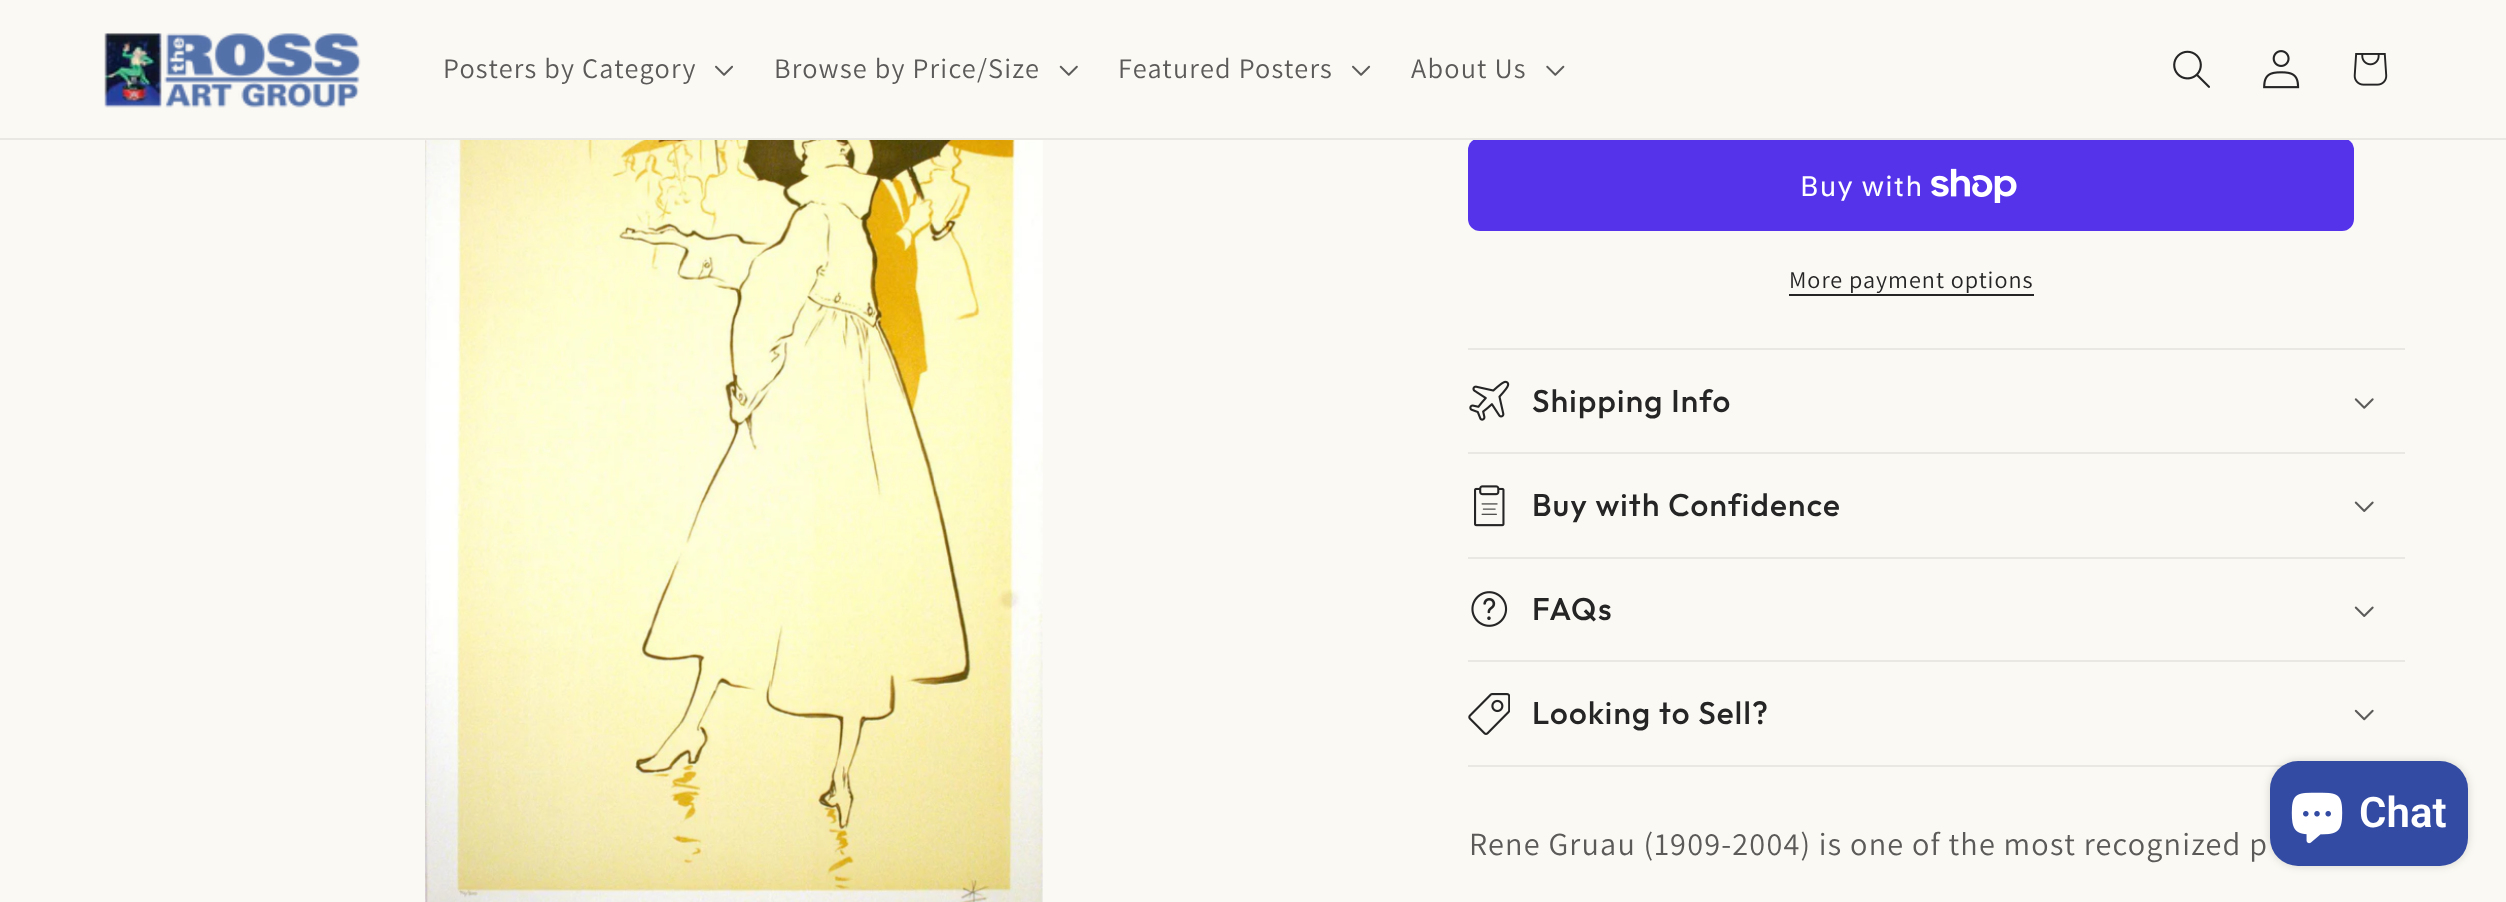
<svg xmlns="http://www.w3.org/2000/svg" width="2506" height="902">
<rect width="100%" height="100%" fill="#fbf9f4"/>
<rect x="1468" y="138" width="886" height="93" rx="12" fill="#5433eb"/>
<rect y="138" width="2506" height="2" fill="#eae8e3"/>
<image x="104" y="33" width="257" height="75" href="media/1.png"/>
<text x="443" y="78" style="font-family:Assistant;font-size:28.25px;letter-spacing:1.2px;fill:#5b5a59">Posters by Category</text>
<image x="715" y="65" width="18" height="11" href="media/2.png"/>
<text x="774" y="78" style="font-family:Assistant;font-size:28.25px;letter-spacing:1.2px;fill:#5b5a59">Browse by Price/Size</text>
<image x="1059" y="65" width="19" height="11" href="media/3.png"/>
<text x="1118" y="78" style="font-family:Assistant;font-size:28.25px;letter-spacing:1.2px;fill:#5b5a59">Featured Posters</text>
<image x="1352" y="65" width="19" height="11" href="media/4.png"/>
<text x="1411" y="78" style="font-family:Assistant;font-size:28.25px;letter-spacing:1.2px;fill:#5b5a59">About Us</text>
<image x="1546" y="65" width="19" height="11" href="media/5.png"/>
<image x="2173" y="50" width="37" height="38" href="media/6.png"/>
<image x="2263" y="50" width="37" height="39" href="media/7.png"/>
<image x="2353" y="53" width="35" height="33" href="media/8.png"/>
<image x="425" y="140" width="618" height="762" href="media/9.png"/>
<text x="1800" y="196" style="font-family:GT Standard;font-size:28px;letter-spacing:1.2px;fill:#fff">Buy with</text>
<image x="1931" y="168" width="86" height="35" href="media/10.png"/>
<text x="1789" y="288" style="font-family:Assistant;font-size:24.1px;letter-spacing:1px;fill:#252525">More payment options</text>
<rect x="1789" y="294" width="245" height="2" fill="#252525"/>
<rect x="1468" y="348" width="937" height="2" fill="#eae8e3"/>
<rect x="1468" y="452" width="937" height="2" fill="#eae8e3"/>
<image x="1469" y="380" width="41" height="41" href="media/11.png"/>
<text x="1532" y="412" style="font-family:Outfit;font-size:31.5px;font-weight:500;letter-spacing:1.25px;fill:#252525">Shipping Info</text>
<image x="2354" y="398" width="20" height="11" href="media/12.png"/>
<rect x="1468" y="557" width="937" height="2" fill="#eae8e3"/>
<image x="1474" y="485" width="31" height="42" href="media/13.png"/>
<text x="1532" y="516" style="font-family:Outfit;font-size:31.5px;font-weight:500;letter-spacing:1.25px;fill:#252525">Buy with Confidence</text>
<image x="2354" y="501" width="20" height="11" href="media/14.png"/>
<rect x="1468" y="660" width="937" height="2" fill="#eae8e3"/>
<image x="1471" y="591" width="37" height="36" href="media/15.png"/>
<text x="1532" y="620" style="font-family:Outfit;font-size:31.5px;font-weight:500;letter-spacing:1.25px;fill:#252525">FAQs</text>
<image x="2354" y="606" width="20" height="11" href="media/14.png"/>
<rect x="1468" y="765" width="816" height="2" fill="#eae8e3"/>
<image x="1468" y="693" width="42" height="42" href="media/16.png"/>
<text x="1532" y="724" style="font-family:Outfit;font-size:31.5px;font-weight:500;letter-spacing:1.25px;fill:#252525">Looking to Sell?</text>
<image x="2354" y="709" width="20" height="12" href="media/17.png"/>
<text x="1469" y="855" style="font-family:Assistant;font-size:32.2px;letter-spacing:1.2px;fill:#5b5a59">Rene Gruau (1909-2004) is one of the most recognized p</text>
<rect x="2270" y="761" width="198" height="105" rx="28" fill="#00000026" filter="blur(4.5px)"/>
<rect x="2270" y="761" width="198" height="105" rx="28" fill="#334ba3"/>
<image x="2291" y="792" width="52" height="52" href="media/18.png"/>
<text x="2359" y="827" style="font-family:Roboto;font-size:42px;font-weight:600;fill:#fff">Chat</text>
</svg>
